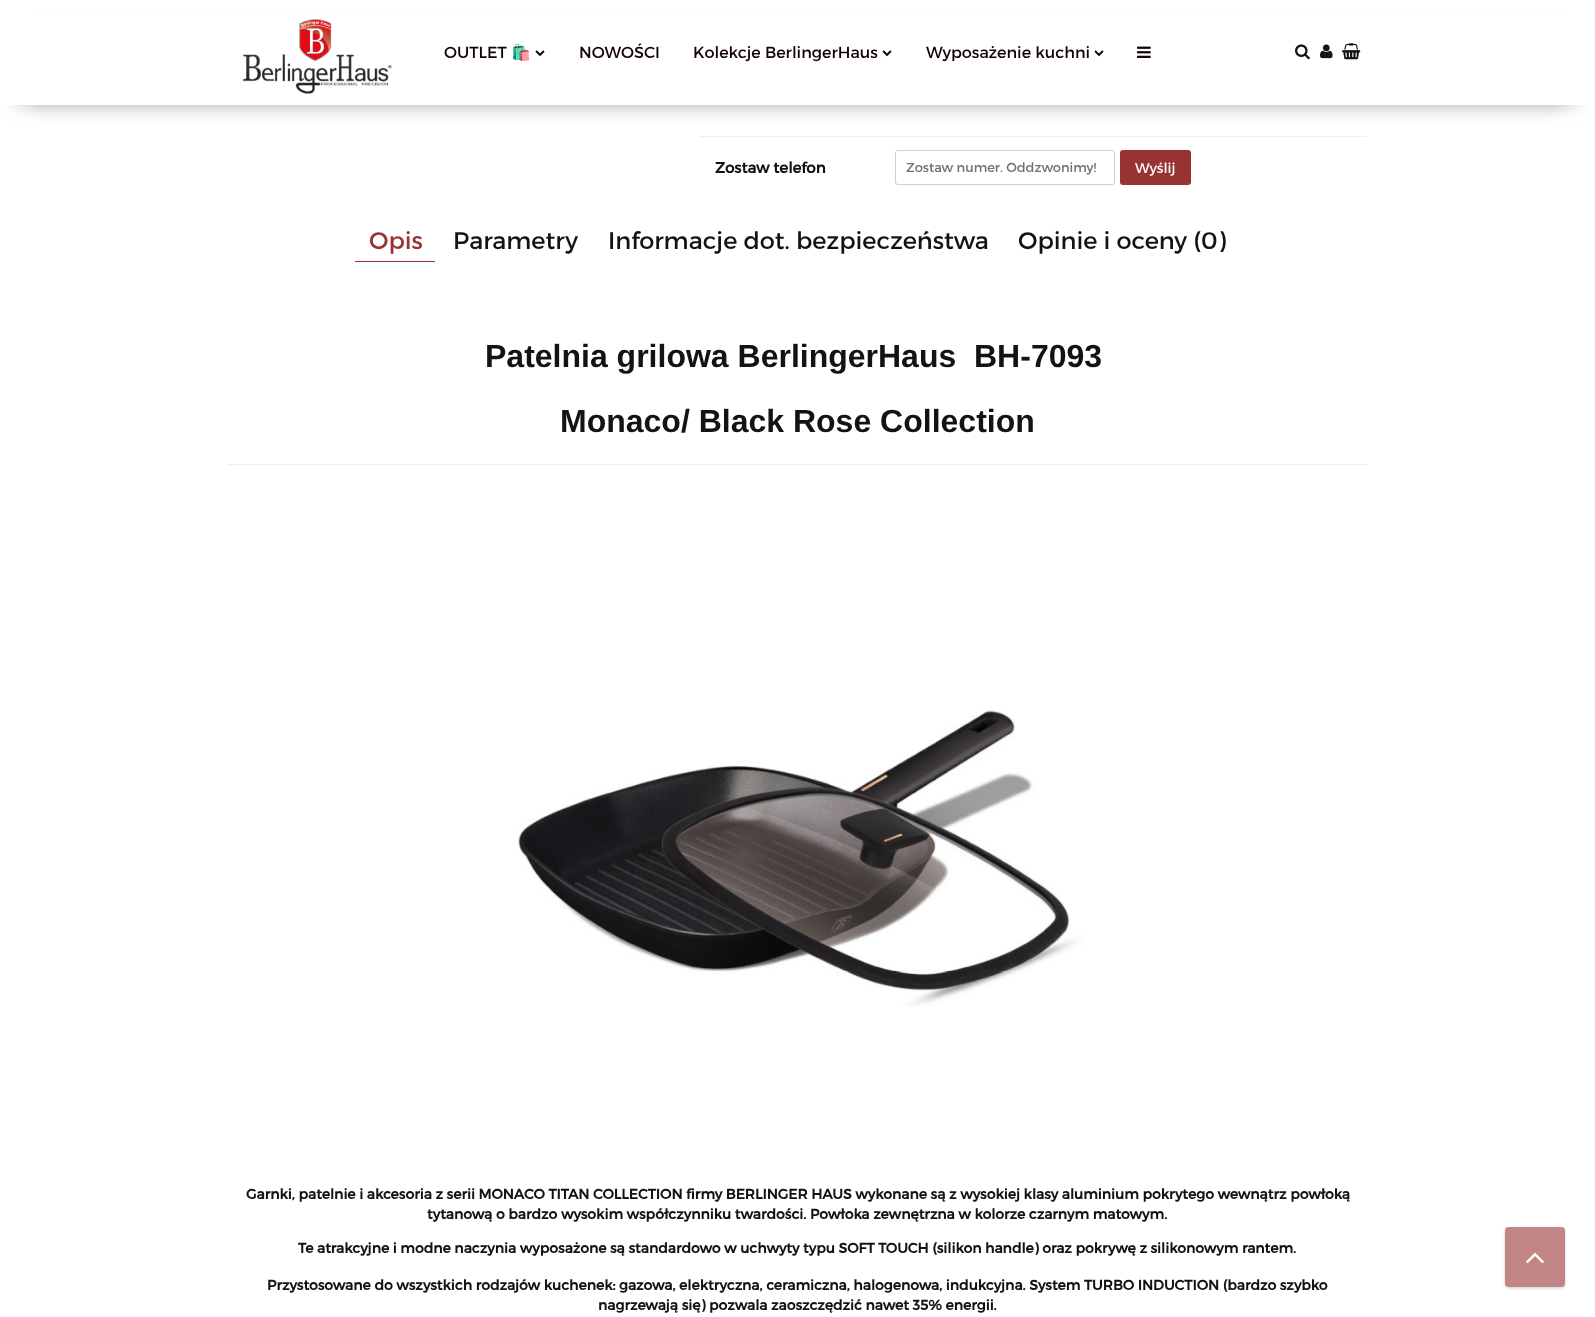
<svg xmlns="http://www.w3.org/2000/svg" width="1595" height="1317">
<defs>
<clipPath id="clip1"><path d="M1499 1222h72v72h-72zm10 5h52c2 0 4 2 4 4v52c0 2-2 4-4 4h-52c-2 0-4-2-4-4v-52c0-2 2-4 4-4z" clip-rule="evenodd"/></clipPath>
</defs>
<rect width="100%" height="100%" fill="#fff"/>
<rect x="22" y="38" width="1549" height="59" fill="#42445a" filter="blur(12.5px)"/>
<rect y="11" width="1595" height="94" fill="#fff"/>
<image x="242" y="19" width="150" height="75" href="media/1.png"/>
<text x="444" y="58" style="font-family:Montserrat;font-size:16px;fill:#120202">OUTLET</text>
<text x="511" y="58" style="font-family:Noto Color Emoji;font-size:16px;fill:#120202">🛍️</text>
<image x="535" y="50" width="10" height="7" href="media/2.png"/>
<text x="579" y="58" style="font-family:Montserrat;font-size:16px;fill:#120202">NOWOŚCI</text>
<text x="693" y="58" style="font-family:Montserrat;font-size:16px;fill:#120202">Kolekcje BerlingerHaus</text>
<image x="882" y="50" width="10" height="7" href="media/2.png"/>
<text x="926" y="58" style="font-family:Montserrat;font-size:16px;fill:#120202">Wyposażenie kuchni</text>
<image x="1094" y="50" width="10" height="7" href="media/2.png"/>
<image x="1137" y="46" width="14" height="12" href="media/3.png"/>
<image x="1295" y="44" width="15" height="16" href="media/4.png"/>
<image x="1320" y="44" width="13" height="15" href="media/5.png"/>
<image x="1342" y="43" width="19" height="17" href="media/6.png"/>
<rect x="700" y="136" width="667" height="1" fill="#efefef"/>
<text x="715" y="173" style="font-family:Montserrat;font-size:15px;font-weight:bold;fill:#131313">Zostaw telefon</text>
<rect x="895.5" y="150.5" width="219" height="34" rx="2.5" fill="none" stroke="#d0d0d0"/>
<text x="906" y="172" style="font-family:Montserrat;font-size:13px;fill:#717171">Zostaw numer. Oddzwonimy!</text>
<rect x="1120" y="150" width="71" height="35" rx="3" fill="#933"/>
<text x="1135" y="173" style="font-family:Montserrat;font-size:14px;fill:#fff">Wyślij</text>
<text x="369" y="249" style="font-family:Montserrat;font-size:24px;fill:#933">Opis</text>
<rect x="355" y="261" width="80" height="1" fill="#933"/>
<text x="453" y="249" style="font-family:Montserrat;font-size:24px;fill:#131313">Parametry</text>
<text x="608" y="249" style="font-family:Montserrat;font-size:24px;fill:#131313">Informacje dot. bezpieczeństwa</text>
<text x="1018" y="249" style="font-family:Montserrat;font-size:24px;fill:#131313">Opinie i oceny (0)</text>
<text x="485" y="367" style="font-family:Liberation Sans;font-size:32px;font-weight:bold;fill:#131313">Patelnia grilowa BerlingerHaus</text>
<text x="974" y="367" style="font-family:Liberation Sans;font-size:32px;font-weight:bold;fill:#131313">BH-7093</text>
<text x="560" y="432" style="font-family:Liberation Sans;font-size:32px;font-weight:bold;fill:#131313">Monaco/ Black Rose Collection</text>
<rect x="228" y="464" width="1140" height="1" fill="#eee"/>
<image x="518" y="710" width="566" height="297" href="media/7.png"/>
<text x="246" y="1199" style="font-family:Montserrat;font-size:14px;font-weight:bold;fill:#131313">Garnki, patelnie i akcesoria z serii MONACO TITAN COLLECTION firmy BERLINGER HAUS wykonane są z wysokiej klasy aluminium pokrytego wewnątrz powłoką</text>
<text x="427" y="1219" style="font-family:Montserrat;font-size:14px;font-weight:bold;fill:#131313">tytanową o bardzo wysokim współczynniku twardości. Powłoka zewnętrzna w kolorze czarnym matowym.</text>
<text x="298" y="1253" style="font-family:Montserrat;font-size:14px;font-weight:bold;fill:#131313">Te atrakcyjne i modne naczynia wyposażone są standardowo w uchwyty typu SOFT TOUCH (silikon handle) oraz pokrywę z silikonowym rantem.</text>
<text x="267" y="1290" style="font-family:Montserrat;font-size:14px;font-weight:bold;fill:#131313">Przystosowane do wszystkich rodzajów kuchenek: gazowa, elektryczna, ceramiczna, halogenowa, indukcyjna. System TURBO INDUCTION (bardzo szybko</text>
<text x="598" y="1310" style="font-family:Montserrat;font-size:14px;font-weight:bold;fill:#131313">nagrzewają się) pozwala zaoszczędzić nawet 35% energii.</text>
<g clip-path="url(#clip1)">
<rect x="1505" y="1228" width="60" height="60" rx="4" fill="#00000033" filter="blur(1.5px)"/>
</g>
<rect x="1505" y="1227" width="60" height="60" rx="4" fill="#99333399"/>
<image x="1526" y="1252" width="18" height="12" href="media/8.png"/>
</svg>
